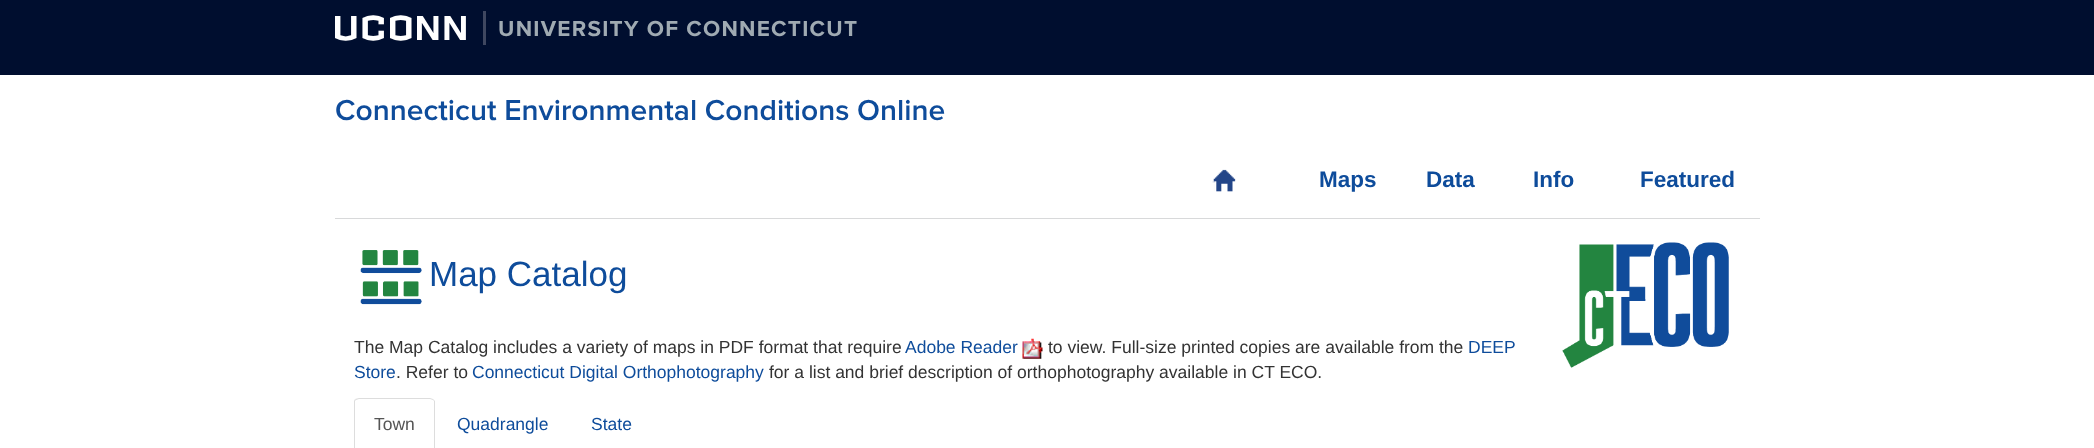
<svg xmlns="http://www.w3.org/2000/svg" width="2094" height="448">
<rect width="100%" height="100%" fill="#fff"/>
<rect width="2094" height="75" fill="#000e2f"/>
<text x="335" y="40" style="font-family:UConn;font-size:40px;letter-spacing:3.75px;fill:#fff">UCONN</text>
<text x="498" y="36" style="font-family:Proxima Nova;font-size:22.5px;font-weight:bold;letter-spacing:1.25px;fill:#9faab2">UNIVERSITY OF CONNECTICUT</text>
<rect x="483" y="11" width="3" height="34" fill="#3f4760"/>
<text x="335" y="120" style="font-family:Proxima Nova;font-size:30px;font-weight:600;fill:#0e4c9b">Connecticut Environmental Conditions Online</text>
<image x="1212" y="169" width="24" height="23" href="media/1.png"/>
<text x="1319" y="187" style="font-family:Liberation Sans;font-size:22.5px;font-weight:bold;fill:#0e4c9b">Maps</text>
<text x="1426" y="187" style="font-family:Liberation Sans;font-size:22.5px;font-weight:bold;fill:#0e4c9b">Data</text>
<text x="1533" y="187" style="font-family:Liberation Sans;font-size:22.5px;font-weight:bold;fill:#0e4c9b">Info</text>
<text x="1640" y="187" style="font-family:Liberation Sans;font-size:22.5px;font-weight:bold;fill:#0e4c9b">Featured</text>
<rect x="335" y="218" width="1425" height="1" fill="#d8d9da"/>
<image x="360" y="250" width="62" height="55" href="media/2.png"/>
<text x="429" y="286" style="font-family:Liberation Sans;font-size:35px;fill:#0e4c9b">Map Catalog</text>
<image x="1562" y="242" width="167" height="126" href="media/3.png"/>
<text x="354" y="353" style="font-family:Liberation Sans;font-size:17.5px;fill:#333">The Map Catalog includes a variety of maps in PDF format that require</text>
<text x="905" y="353" style="font-family:Liberation Sans;font-size:17.5px;fill:#0e4c9b">Adobe Reader</text>
<image x="1022" y="338" width="21" height="21" href="media/4.png"/>
<text x="1048" y="353" style="font-family:Liberation Sans;font-size:17.5px;fill:#333">to view. Full-size printed copies are available from the</text>
<text x="1468" y="353" style="font-family:Liberation Sans;font-size:17.5px;fill:#0e4c9b">DEEP</text>
<text x="354" y="378" style="font-family:Liberation Sans;font-size:17.5px;fill:#0e4c9b">Store</text>
<text x="396" y="378" style="font-family:Liberation Sans;font-size:17.5px;fill:#333">. Refer to</text>
<text x="472" y="378" style="font-family:Liberation Sans;font-size:17.5px;fill:#0e4c9b">Connecticut Digital Orthophotography</text>
<text x="769" y="378" style="font-family:Liberation Sans;font-size:17.5px;fill:#333">for a list and brief description of orthophotography available in CT ECO.</text>
<path d="M359 398l-4 1l1 1l3-1h71l3 1v-1l-3-1z" fill="#ddd"/>
<path d="M435 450v-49l-2-2v1l1 1v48z" fill="#ddd"/>
<path d="M355 399l-1 2v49l1-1v-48l1-1z" fill="#ddd"/>
<text x="374" y="430" style="font-family:Liberation Sans;font-size:17.5px;fill:#555">Town</text>
<text x="457" y="430" style="font-family:Liberation Sans;font-size:17.5px;fill:#0e4c9b">Quadrangle</text>
<text x="591" y="430" style="font-family:Liberation Sans;font-size:17.5px;fill:#0e4c9b">State</text>
</svg>
